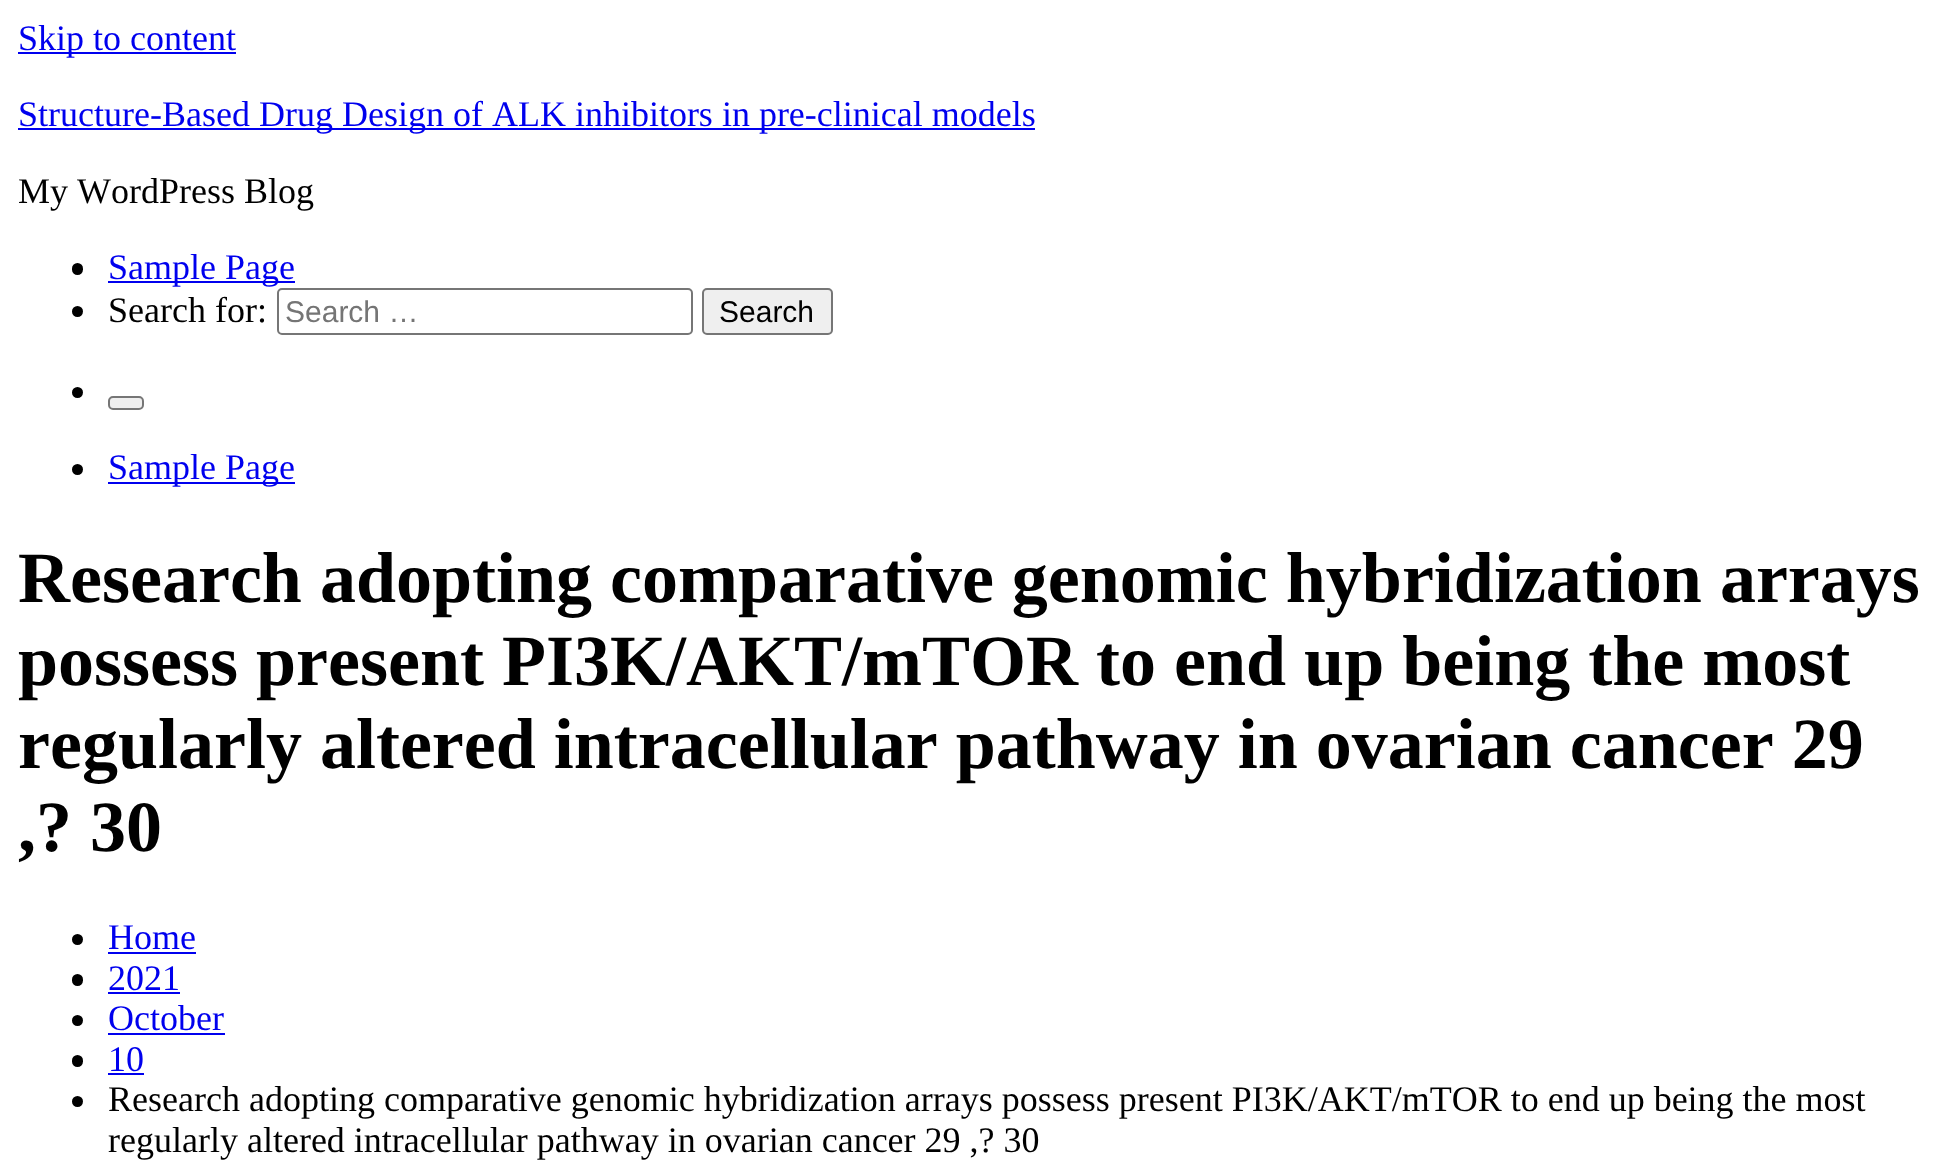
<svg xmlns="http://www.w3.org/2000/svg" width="1952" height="1163">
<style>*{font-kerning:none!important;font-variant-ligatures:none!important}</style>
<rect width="100%" height="100%" fill="#fff"/>
<rect x="18" y="52" width="218" height="2" fill="#00e"/>
<text x="18" y="50" style="font-family:Liberation Serif;font-size:36px;fill:#00e">Skip to content</text>
<rect x="18" y="128" width="1017" height="2" fill="#00e"/>
<text x="18" y="126" style="font-family:Liberation Serif;font-size:36px;fill:#00e">Structure-Based Drug Design of ALK inhibitors in pre-clinical models</text>
<text x="18" y="203" style="font-family:Liberation Serif;font-size:36px;fill:#000">My WordPress Blog</text>
<rect x="72" y="263" width="11" height="12" rx="5.5" fill="#000"/>
<rect x="108" y="281" width="187" height="2" fill="#00e"/>
<text x="108" y="279" style="font-family:Liberation Serif;font-size:36px;fill:#00e">Sample Page</text>
<circle cx="77.5" cy="311.5" r="5.5" fill="#000"/>
<text x="108" y="322" style="font-family:Liberation Serif;font-size:36px;fill:#000">Search for:</text>
<rect x="278" y="289" width="414" height="45" rx="4" fill="none" stroke="#767676" stroke-width="2"/>
<text x="285" y="322" style="font-family:Liberation Sans;font-size:30px;fill:#757575">Search …</text>
<rect x="703" y="289" width="129" height="45" rx="4" fill="#efefef" stroke="#767676" stroke-width="2"/>
<text x="719" y="322" style="font-family:Liberation Sans;font-size:30px;fill:#000">Search</text>
<circle cx="77.5" cy="392.5" r="5.5" fill="#000"/>
<rect x="109" y="397" width="34" height="12" rx="4" fill="#efefef" stroke="#767676" stroke-width="2"/>
<circle cx="77.5" cy="469.5" r="5.5" fill="#000"/>
<rect x="108" y="482" width="187" height="2" fill="#00e"/>
<text x="108" y="479" style="font-family:Liberation Serif;font-size:36px;fill:#00e">Sample Page</text>
<text x="18" y="602" style="font-family:Liberation Serif;font-size:72px;font-weight:bold;fill:#000">Research adopting comparative genomic hybridization arrays</text>
<text x="18" y="685" style="font-family:Liberation Serif;font-size:72px;font-weight:bold;fill:#000">possess present PI3K/AKT/mTOR to end up being the most</text>
<text x="18" y="768" style="font-family:Liberation Serif;font-size:72px;font-weight:bold;fill:#000">regularly altered intracellular pathway in ovarian cancer 29</text>
<text x="18" y="851" style="font-family:Liberation Serif;font-size:72px;font-weight:bold;fill:#000">,? 30</text>
<circle cx="77.5" cy="939.5" r="5.5" fill="#000"/>
<text x="108" y="949" style="font-family:Liberation Serif;font-size:36px;fill:#00e">Home</text>
<rect x="108" y="952" width="88" height="2" fill="#00e"/>
<rect x="72" y="974" width="11" height="12" rx="5.5" fill="#000"/>
<text x="108" y="990" style="font-family:Liberation Serif;font-size:36px;fill:#00e">2021</text>
<rect x="108" y="992" width="72" height="2" fill="#00e"/>
<circle cx="77.5" cy="1020.5" r="5.5" fill="#000"/>
<text x="108" y="1030" style="font-family:Liberation Serif;font-size:36px;fill:#00e">October</text>
<rect x="108" y="1033" width="117" height="2" fill="#00e"/>
<rect x="72" y="1055" width="11" height="12" rx="5.5" fill="#000"/>
<text x="108" y="1071" style="font-family:Liberation Serif;font-size:36px;fill:#00e">10</text>
<rect x="108" y="1073" width="36" height="2" fill="#00e"/>
<circle cx="77.5" cy="1101.5" r="5.5" fill="#000"/>
<text x="108" y="1111" style="font-family:Liberation Serif;font-size:36px;fill:#000">Research adopting comparative genomic hybridization arrays possess present PI3K/AKT/mTOR to end up being the most</text>
<text x="108" y="1152" style="font-family:Liberation Serif;font-size:36px;fill:#000">regularly altered intracellular pathway in ovarian cancer 29 ,? 30</text>
</svg>
